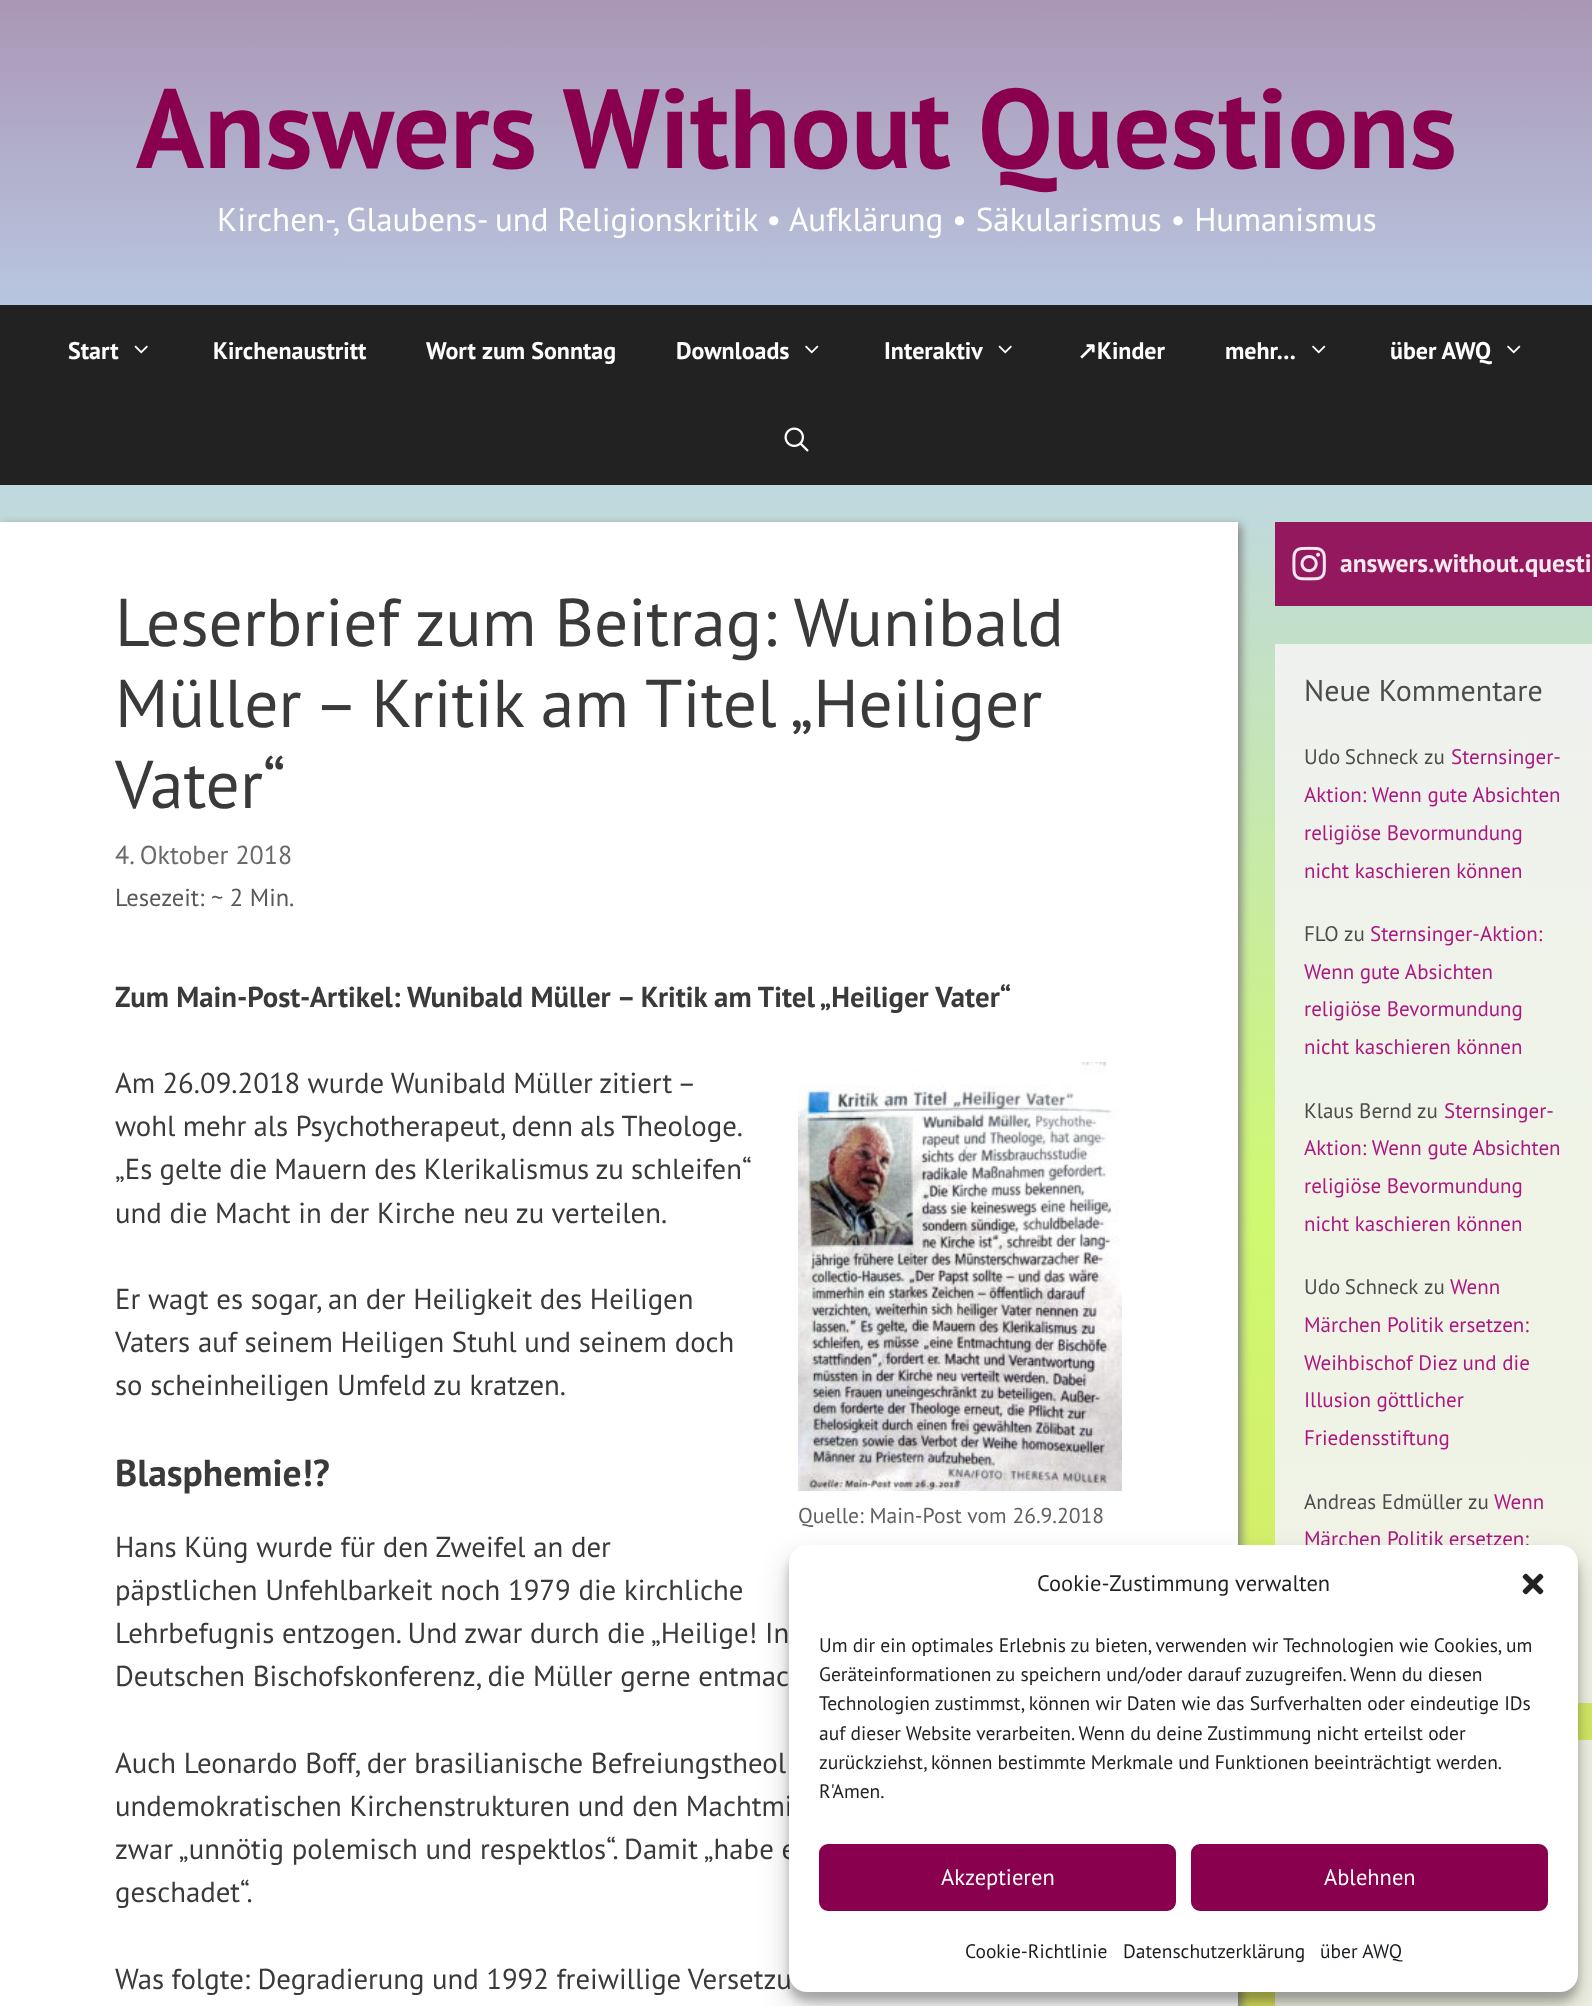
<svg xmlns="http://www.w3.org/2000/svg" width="1592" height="2006">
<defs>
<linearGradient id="g1" gradientUnits="userSpaceOnUse" x1="796" y1="0" x2="797" y2="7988"><stop offset="0" stop-color="#aa96b5"/><stop offset="0.05" stop-color="#bdd5ed"/><stop offset="0.15" stop-color="#cff972"/><stop offset="0.3" stop-color="#e0d757"/><stop offset="0.42" stop-color="#d3a843"/><stop offset="0.59" stop-color="#cea7a5"/><stop offset="0.77" stop-color="#c493b2"/><stop offset="1" stop-color="#606475"/></linearGradient>
<linearGradient id="g2" gradientUnits="userSpaceOnUse" x1="796" y1="0" x2="797" y2="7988"><stop offset="0" stop-color="#eceaed"/><stop offset="0.05" stop-color="#eef0f2"/><stop offset="0.15" stop-color="#eff4e6"/><stop offset="0.3" stop-color="#f1f0e3"/><stop offset="0.42" stop-color="#f0ece1"/><stop offset="0.59" stop-color="#efebeb"/><stop offset="0.77" stop-color="#eee9ed"/><stop offset="1" stop-color="#e4e5e6"/></linearGradient>
</defs>
<rect width="100%" height="100%" fill="#fff"/>
<rect width="1592" height="2006" fill="url(#g1)"/>
<rect x="1275" y="1740" width="317" height="266" fill="url(#g2)"/>
<rect x="1275" y="710" width="317" height="993" fill="url(#g2)"/>
<rect x="1275" y="644" width="317" height="66" fill="url(#g2)"/>
<text x="136" y="168" style="font-family:PT Sans;font-size:112.5px;font-weight:bold;fill:#89004e">Answers Without Questions</text>
<text x="217" y="231" style="font-family:PT Sans;font-size:33px;fill:#fff">Kirchen-, Glaubens- und Religionskritik • Aufklärung • Säkularismus • Humanismus</text>
<rect y="305" width="1592" height="180" fill="#222"/>
<text x="68" y="359" style="font-family:PT Sans;font-size:24px;font-weight:bold;fill:#fff">Start</text>
<image x="134" y="345" width="14" height="9" href="media/1.png"/>
<text x="213" y="359" style="font-family:PT Sans;font-size:24px;font-weight:bold;fill:#fff">Kirchenaustritt</text>
<text x="426" y="359" style="font-family:PT Sans;font-size:24px;font-weight:bold;fill:#fff">Wort zum Sonntag</text>
<text x="676" y="359" style="font-family:PT Sans;font-size:24px;font-weight:bold;fill:#fff">Downloads</text>
<image x="805" y="345" width="14" height="9" href="media/2.png"/>
<text x="884" y="359" style="font-family:PT Sans;font-size:24px;font-weight:bold;fill:#fff">Interaktiv</text>
<image x="998" y="345" width="14" height="9" href="media/1.png"/>
<text x="1077" y="359" style="font-family:DejaVu Sans;font-size:24px;font-weight:bold;fill:#fff">↗</text>
<text x="1097" y="359" style="font-family:PT Sans;font-size:24px;font-weight:bold;fill:#fff">Kinder</text>
<text x="1225" y="359" style="font-family:PT Sans;font-size:24px;font-weight:bold;fill:#fff">mehr…</text>
<image x="1312" y="345" width="14" height="9" href="media/2.png"/>
<text x="1390" y="359" style="font-family:PT Sans;font-size:24px;font-weight:bold;fill:#fff">über AWQ</text>
<image x="1507" y="345" width="14" height="9" href="media/2.png"/>
<image x="784" y="427" width="25" height="25" href="media/3.png"/>
<rect x="3" y="525" width="1238" height="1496" fill="#808080" filter="blur(5px)"/>
<rect y="522" width="1238" height="1484" fill="#fff"/>
<text x="115" y="646" style="font-family:PT Sans;font-size:67.5px;fill:#3a3a3a">Leserbrief zum Beitrag: Wunibald</text>
<text x="115" y="727" style="font-family:PT Sans;font-size:67.5px;fill:#3a3a3a">Müller – Kritik am Titel „Heiliger</text>
<text x="115" y="808" style="font-family:PT Sans;font-size:67.5px;fill:#3a3a3a">Vater“</text>
<text x="115" y="864" style="font-family:PT Sans;font-size:26px;fill:#6a6a6a">4. Oktober 2018</text>
<text x="115" y="906" style="font-family:PT Sans;font-size:24.5px;fill:#595959">Lesezeit: ~ 2 Min.</text>
<text x="115" y="1007" style="font-family:PT Sans;font-size:28.8px;font-weight:bold;fill:#3a3a3a">Zum Main-Post-Artikel: Wunibald Müller – Kritik am Titel „Heiliger Vater“</text>
<text x="115" y="1093" word-spacing="-0.5" style="font-family:PT Sans;font-size:28.8px;fill:#3a3a3a">Am 26.09.2018 wurde Wunibald Müller zitiert –</text>
<text x="115" y="1136" word-spacing="-0.5" style="font-family:PT Sans;font-size:28.8px;fill:#3a3a3a">wohl mehr als Psychotherapeut, denn als Theologe.</text>
<text x="115" y="1179" word-spacing="-0.5" style="font-family:PT Sans;font-size:28.8px;fill:#3a3a3a">„Es gelte die Mauern des Klerikalismus zu schleifen“</text>
<text x="115" y="1223" style="font-family:PT Sans;font-size:28.8px;fill:#3a3a3a">und die Macht in der Kirche neu zu verteilen.</text>
<text x="115" y="1309" style="font-family:PT Sans;font-size:28.8px;fill:#3a3a3a">Er wagt es sogar, an der Heiligkeit des Heiligen</text>
<text x="115" y="1352" style="font-family:PT Sans;font-size:28.8px;fill:#3a3a3a">Vaters auf seinem Heiligen Stuhl und seinem doch</text>
<text x="115" y="1395" style="font-family:PT Sans;font-size:28.8px;fill:#3a3a3a">so scheinheiligen Umfeld zu kratzen.</text>
<text x="115" y="1486" style="font-family:PT Sans;font-size:37.5px;font-weight:bold;fill:#3a3a3a">Blasphemie!?</text>
<image x="798" y="1062" width="324" height="429" href="media/4.png"/>
<text x="798" y="1523" style="font-family:PT Sans;font-size:21.6px;fill:#616161">Quelle: Main-Post vom 26.9.2018</text>
<text x="115" y="1557" style="font-family:PT Sans;font-size:28.8px;fill:#3a3a3a">Hans Küng wurde für den Zweifel an der</text>
<text x="115" y="1600" style="font-family:PT Sans;font-size:28.8px;fill:#3a3a3a">päpstlichen Unfehlbarkeit noch 1979 die kirchliche</text>
<text x="115" y="1643" style="font-family:PT Sans;font-size:28.8px;fill:#3a3a3a">Lehrbefugnis entzogen. Und zwar durch die „Heilige! In</text>
<text x="115" y="1686" style="font-family:PT Sans;font-size:28.8px;fill:#3a3a3a">Deutschen Bischofskonferenz, die Müller gerne entmac</text>
<text x="115" y="1773" style="font-family:PT Sans;font-size:28.8px;fill:#3a3a3a">Auch Leonardo Boff, der brasilianische Befreiungstheol</text>
<text x="115" y="1816" style="font-family:PT Sans;font-size:28.8px;fill:#3a3a3a">undemokratischen Kirchenstrukturen und den Machtmi</text>
<text x="115" y="1859" style="font-family:PT Sans;font-size:28.8px;fill:#3a3a3a">zwar „unnötig polemisch und respektlos“. Damit „habe e</text>
<text x="115" y="1902" style="font-family:PT Sans;font-size:28.8px;fill:#3a3a3a">geschadet“.</text>
<text x="115" y="1989" word-spacing="-0.25" style="font-family:PT Sans;font-size:28.8px;fill:#3a3a3a">Was folgte: Degradierung und 1992 freiwillige Versetzu</text>
<rect x="1275" y="522" width="317" height="84" fill="#93185e"/>
<image x="1292" y="546" width="34" height="35" href="media/5.png"/>
<text x="1340" y="572" style="font-family:PT Sans;font-size:25.5px;font-weight:bold;fill:#f4e8ef">answers.without.questi</text>
<text x="1304" y="701" style="font-family:PT Sans;font-size:30px;fill:#4c4c4c">Neue Kommentare</text>
<text x="1304" y="764" word-spacing="-1" style="font-family:PT Sans;font-size:21px;fill:#4c4c4c">Udo Schneck</text>
<text x="1424" y="764" style="font-family:PT Sans;font-size:21px;fill:#4c4c4c">zu</text>
<text x="1451" y="764" style="font-family:PT Sans;font-size:21px;fill:#ac1880">Sternsinger-</text>
<text x="1304" y="802" style="font-family:PT Sans;font-size:21px;fill:#ac1880">Aktion: Wenn gute Absichten</text>
<text x="1304" y="840" style="font-family:PT Sans;font-size:21px;fill:#ac1880">religiöse Bevormundung</text>
<text x="1304" y="878" style="font-family:PT Sans;font-size:21px;fill:#ac1880">nicht kaschieren können</text>
<text x="1304" y="941" style="font-family:PT Sans;font-size:21px;fill:#4c4c4c">FLO</text>
<text x="1344" y="941" style="font-family:PT Sans;font-size:21px;fill:#4c4c4c">zu</text>
<text x="1370" y="941" style="font-family:PT Sans;font-size:21px;fill:#ac1880">Sternsinger-Aktion:</text>
<text x="1304" y="979" style="font-family:PT Sans;font-size:21px;fill:#ac1880">Wenn gute Absichten</text>
<text x="1304" y="1016" style="font-family:PT Sans;font-size:21px;fill:#ac1880">religiöse Bevormundung</text>
<text x="1304" y="1054" style="font-family:PT Sans;font-size:21px;fill:#ac1880">nicht kaschieren können</text>
<text x="1304" y="1118" style="font-family:PT Sans;font-size:21px;fill:#4c4c4c">Klaus Bernd</text>
<text x="1417" y="1118" style="font-family:PT Sans;font-size:21px;fill:#4c4c4c">zu</text>
<text x="1444" y="1118" style="font-family:PT Sans;font-size:21px;fill:#ac1880">Sternsinger-</text>
<text x="1304" y="1155" style="font-family:PT Sans;font-size:21px;fill:#ac1880">Aktion: Wenn gute Absichten</text>
<text x="1304" y="1193" style="font-family:PT Sans;font-size:21px;fill:#ac1880">religiöse Bevormundung</text>
<text x="1304" y="1231" style="font-family:PT Sans;font-size:21px;fill:#ac1880">nicht kaschieren können</text>
<text x="1304" y="1294" word-spacing="-1" style="font-family:PT Sans;font-size:21px;fill:#4c4c4c">Udo Schneck</text>
<text x="1424" y="1294" style="font-family:PT Sans;font-size:21px;fill:#4c4c4c">zu</text>
<text x="1450" y="1294" style="font-family:PT Sans;font-size:21px;fill:#ac1880">Wenn</text>
<text x="1304" y="1332" style="font-family:PT Sans;font-size:21px;fill:#ac1880">Märchen Politik ersetzen:</text>
<text x="1304" y="1370" style="font-family:PT Sans;font-size:21px;fill:#ac1880">Weihbischof Diez und die</text>
<text x="1304" y="1407" style="font-family:PT Sans;font-size:21px;fill:#ac1880">Illusion göttlicher</text>
<text x="1304" y="1445" style="font-family:PT Sans;font-size:21px;fill:#ac1880">Friedensstiftung</text>
<text x="1304" y="1509" style="font-family:PT Sans;font-size:21px;fill:#4c4c4c">Andreas Edmüller</text>
<text x="1468" y="1509" style="font-family:PT Sans;font-size:21px;fill:#4c4c4c">zu</text>
<text x="1494" y="1509" style="font-family:PT Sans;font-size:21px;fill:#ac1880">Wenn</text>
<text x="1304" y="1546" style="font-family:PT Sans;font-size:21px;fill:#ac1880">Märchen Politik ersetzen:</text>
<rect x="789" y="1554" width="789" height="447" rx="18" fill="#0000003b" filter="blur(4.5px)"/>
<rect x="789" y="1560" width="789" height="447" rx="18" fill="#00000030" filter="blur(15px)"/>
<rect x="789" y="1545" width="789" height="447" rx="18" fill="#fff"/>
<text x="1037" y="1591" style="font-family:PT Sans;font-size:22.5px;fill:#222">Cookie-Zustimmung verwalten</text>
<image x="1522" y="1573" width="22" height="22" href="media/6.png"/>
<text x="819" y="1652" style="font-family:PT Sans;font-size:19.5px;fill:#222">Um dir ein optimales Erlebnis zu bieten, verwenden wir Technologien wie Cookies, um</text>
<text x="819" y="1681" style="font-family:PT Sans;font-size:19.5px;fill:#222">Geräteinformationen zu speichern und/oder darauf zuzugreifen. Wenn du diesen</text>
<text x="819" y="1710" style="font-family:PT Sans;font-size:19.5px;fill:#222">Technologien zustimmst, können wir Daten wie das Surfverhalten oder eindeutige IDs</text>
<text x="819" y="1740" style="font-family:PT Sans;font-size:19.5px;fill:#222">auf dieser Website verarbeiten. Wenn du deine Zustimmung nicht erteilst oder</text>
<text x="819" y="1769" word-spacing="-0.25" style="font-family:PT Sans;font-size:19.5px;fill:#222">zurückziehst, können bestimmte Merkmale und Funktionen beeinträchtigt werden.</text>
<text x="819" y="1798" style="font-family:PT Sans;font-size:19.5px;fill:#222">R'Amen.</text>
<rect x="820" y="1845" width="355" height="65" rx="8" fill="#89004e" stroke="#89004e" stroke-width="2"/>
<text x="941" y="1885" style="font-family:PT Sans;font-size:22.5px;fill:#fff">Akzeptieren</text>
<rect x="1192" y="1845" width="355" height="65" rx="8" fill="#89004e" stroke="#89004e" stroke-width="2"/>
<text x="1324" y="1885" style="font-family:PT Sans;font-size:22.5px;fill:#fff">Ablehnen</text>
<text x="965" y="1958" style="font-family:PT Sans;font-size:19.5px;fill:#191e23">Cookie-Richtlinie</text>
<text x="1123" y="1958" style="font-family:PT Sans;font-size:19.5px;fill:#191e23">Datenschutzerklärung</text>
<text x="1320" y="1958" style="font-family:PT Sans;font-size:19.5px;fill:#191e23">über AWQ</text>
</svg>
